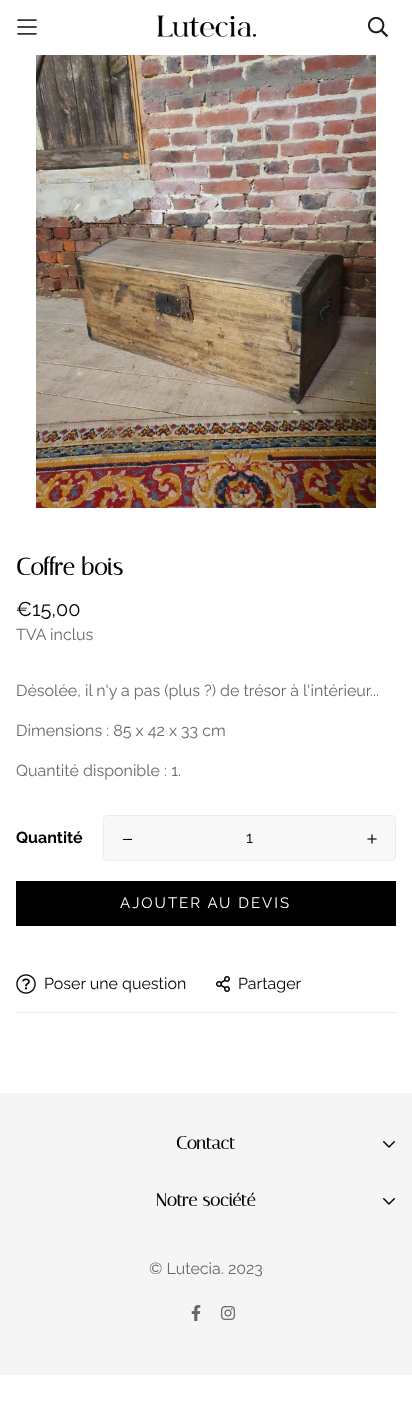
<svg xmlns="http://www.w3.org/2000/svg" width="412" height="1418">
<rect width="100%" height="100%" fill="#fff"/>
<image x="17" y="19" width="20" height="16" href="media/1.png"/>
<image x="157" y="15" width="100" height="22" href="media/2.png"/>
<image x="368" y="17" width="20" height="20" href="media/3.png"/>
<image x="36" y="55" width="340" height="453" href="media/4.png"/>
<text x="16" y="575" style="font-family:Italiana;font-size:24px;font-weight:bold;fill:#000">Coffre bois</text>
<text x="16" y="616" style="font-family:Raleway;font-size:20px;fill:#000">€15,00</text>
<text x="16" y="640" style="font-family:Raleway;font-size:16px;fill:#696969">TVA inclus</text>
<text x="16" y="696" style="font-family:Raleway;font-size:16px;fill:#696969">Désolée, il n'y a pas (plus ?) de trésor à l'intérieur...</text>
<text x="16" y="736" style="font-family:Raleway;font-size:16px;fill:#696969">Dimensions : 85 x 42 x 33 cm</text>
<text x="16" y="776" style="font-family:Raleway;font-size:16px;fill:#696969">Quantité disponible : 1.</text>
<text x="16" y="843" style="font-family:Raleway;font-size:16px;font-weight:bold;fill:#000">Quantité</text>
<rect x="103.5" y="815.5" width="292" height="45" rx="3.5" fill="#f8f8f8" stroke="#eeeee0"/>
<image x="122" y="838" width="10" height="2" href="media/5.png"/>
<text x="246" y="843" style="font-family:Raleway;font-size:16px;fill:#000">1</text>
<image x="367" y="834" width="10" height="10" href="media/6.png"/>
<rect x="16" y="881" width="380" height="45" fill="#000"/>
<text x="120" y="908" style="font-family:Raleway;font-size:15px;letter-spacing:2px;fill:#fff">AJOUTER AU DEVIS</text>
<rect x="16" y="1012" width="380" height="1" fill="#eeeee0"/>
<image x="16" y="974" width="20" height="20" href="media/7.png"/>
<text x="44" y="989" style="font-family:Raleway;font-size:16px;fill:#000">Poser une question</text>
<image x="216" y="976" width="14" height="16" href="media/8.png"/>
<text x="238" y="989" style="font-family:Raleway;font-size:16px;fill:#000">Partager</text>
<rect y="1093" width="412" height="282" fill="#f5f5f5"/>
<text x="176" y="1149" style="font-family:Italiana;font-size:18px;font-weight:bold;fill:#000">Contact</text>
<image x="383" y="1141" width="12" height="7" href="media/9.png"/>
<text x="156" y="1206" style="font-family:Italiana;font-size:18px;font-weight:bold;fill:#000">Notre société</text>
<image x="383" y="1198" width="12" height="7" href="media/9.png"/>
<text x="149" y="1274" style="font-family:Raleway;font-size:16px;fill:#696969">© Lutecia. 2023</text>
<image x="191" y="1305" width="10" height="16" href="media/10.png"/>
<image x="221" y="1306" width="14" height="14" href="media/11.png"/>
</svg>
